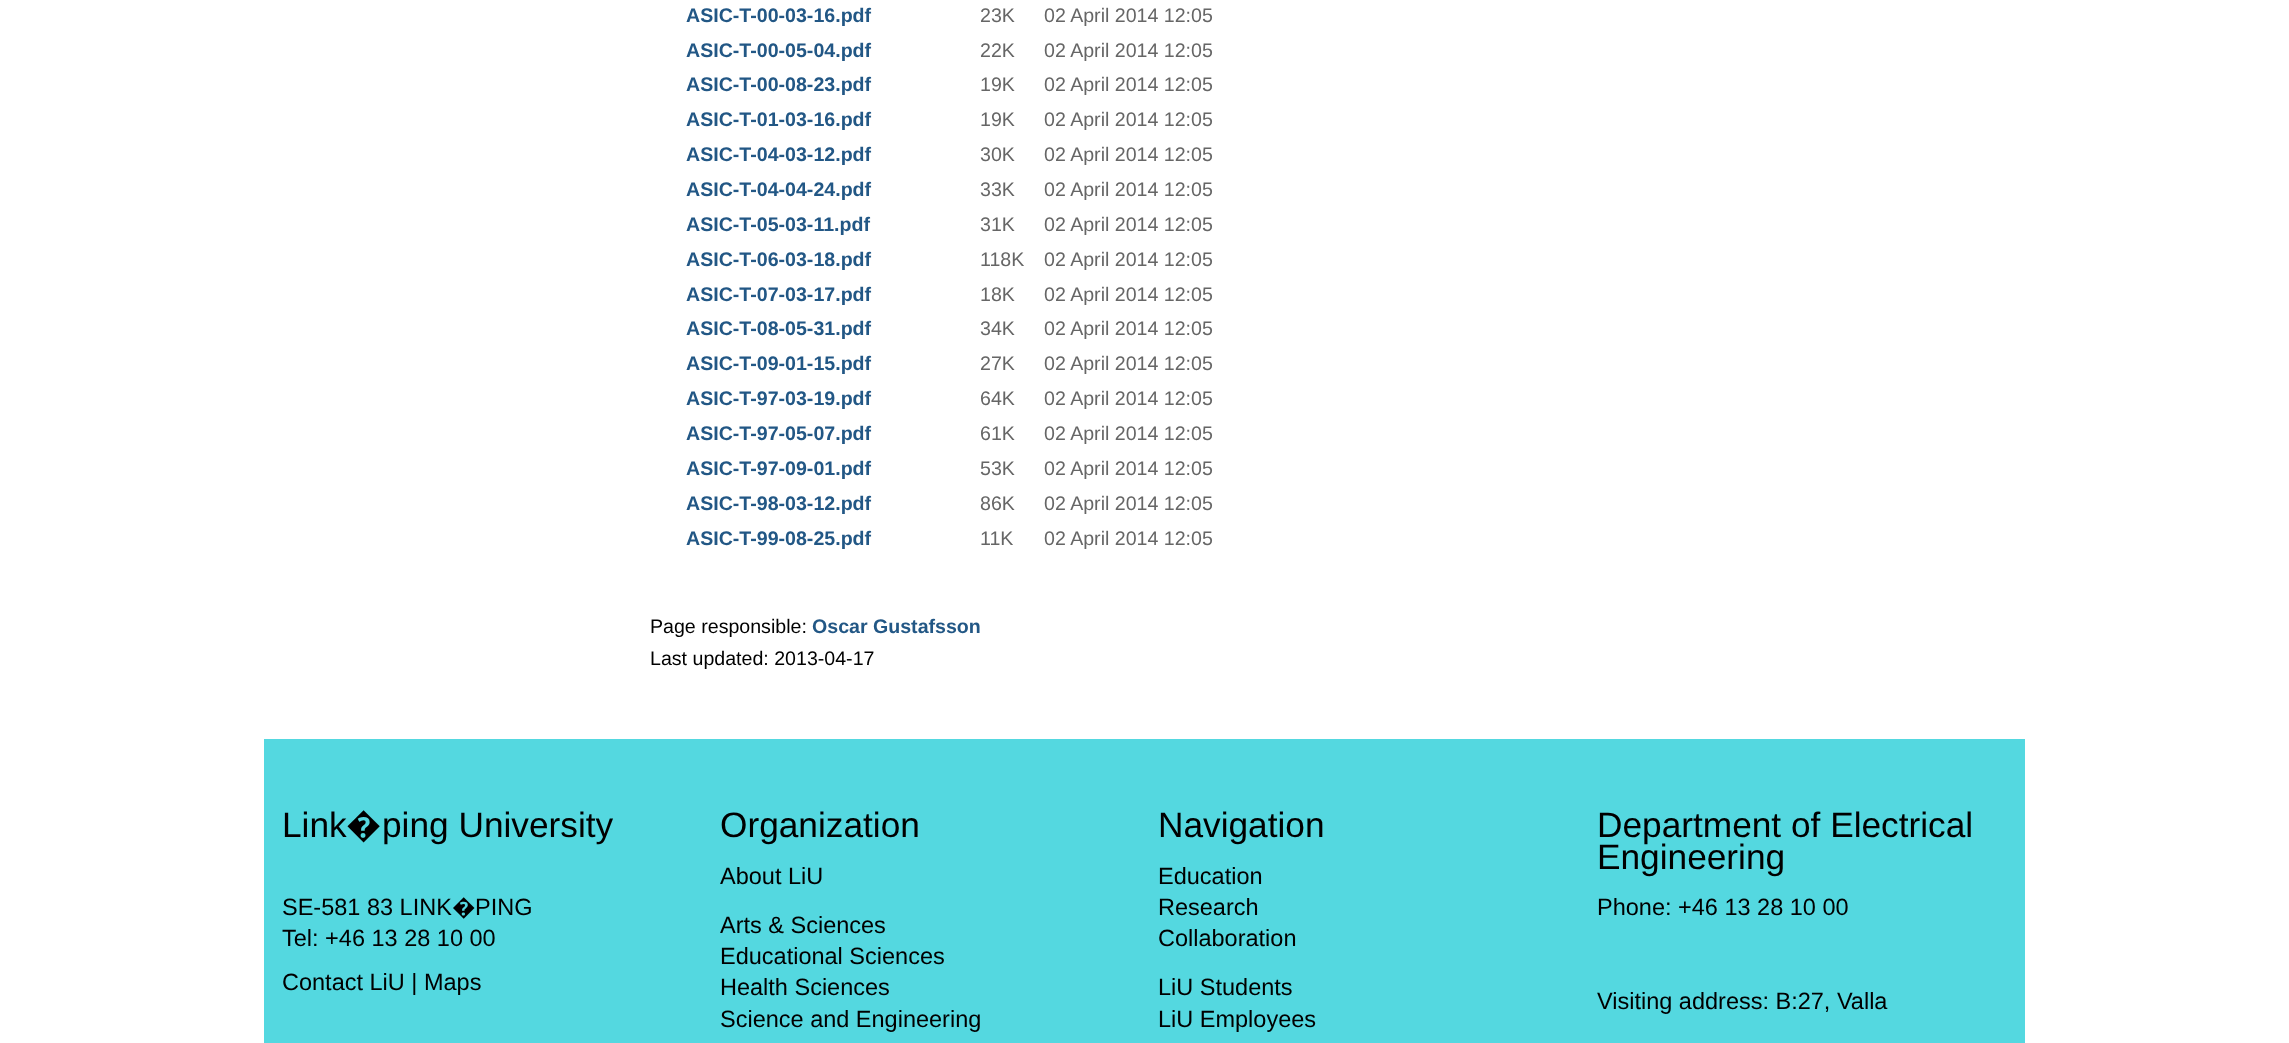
<svg xmlns="http://www.w3.org/2000/svg" width="2289" height="1043">
<rect width="100%" height="100%" fill="#fff"/>
<text x="686" y="22" style="font-family:Liberation Sans;font-size:19.6px;font-weight:bold;fill:#225785">ASIC-T-00-03-16.pdf</text>
<text x="980" y="22" style="font-family:Liberation Sans;font-size:19.6px;fill:#666">23K</text>
<text x="1044" y="22" style="font-family:Liberation Sans;font-size:19.6px;fill:#666">02 April 2014 12:05</text>
<text x="686" y="57" style="font-family:Liberation Sans;font-size:19.6px;font-weight:bold;fill:#225785">ASIC-T-00-05-04.pdf</text>
<text x="980" y="57" style="font-family:Liberation Sans;font-size:19.6px;fill:#666">22K</text>
<text x="1044" y="57" style="font-family:Liberation Sans;font-size:19.6px;fill:#666">02 April 2014 12:05</text>
<text x="686" y="91" style="font-family:Liberation Sans;font-size:19.6px;font-weight:bold;fill:#225785">ASIC-T-00-08-23.pdf</text>
<text x="980" y="91" style="font-family:Liberation Sans;font-size:19.6px;fill:#666">19K</text>
<text x="1044" y="91" style="font-family:Liberation Sans;font-size:19.6px;fill:#666">02 April 2014 12:05</text>
<text x="686" y="126" style="font-family:Liberation Sans;font-size:19.6px;font-weight:bold;fill:#225785">ASIC-T-01-03-16.pdf</text>
<text x="980" y="126" style="font-family:Liberation Sans;font-size:19.6px;fill:#666">19K</text>
<text x="1044" y="126" style="font-family:Liberation Sans;font-size:19.6px;fill:#666">02 April 2014 12:05</text>
<text x="686" y="161" style="font-family:Liberation Sans;font-size:19.6px;font-weight:bold;fill:#225785">ASIC-T-04-03-12.pdf</text>
<text x="980" y="161" style="font-family:Liberation Sans;font-size:19.6px;fill:#666">30K</text>
<text x="1044" y="161" style="font-family:Liberation Sans;font-size:19.6px;fill:#666">02 April 2014 12:05</text>
<text x="686" y="196" style="font-family:Liberation Sans;font-size:19.6px;font-weight:bold;fill:#225785">ASIC-T-04-04-24.pdf</text>
<text x="980" y="196" style="font-family:Liberation Sans;font-size:19.6px;fill:#666">33K</text>
<text x="1044" y="196" style="font-family:Liberation Sans;font-size:19.6px;fill:#666">02 April 2014 12:05</text>
<text x="686" y="231" style="font-family:Liberation Sans;font-size:19.6px;font-weight:bold;fill:#225785">ASIC-T-05-03-11.pdf</text>
<text x="980" y="231" style="font-family:Liberation Sans;font-size:19.6px;fill:#666">31K</text>
<text x="1044" y="231" style="font-family:Liberation Sans;font-size:19.6px;fill:#666">02 April 2014 12:05</text>
<text x="686" y="266" style="font-family:Liberation Sans;font-size:19.6px;font-weight:bold;fill:#225785">ASIC-T-06-03-18.pdf</text>
<text x="980" y="266" style="font-family:Liberation Sans;font-size:19.6px;fill:#666">118K</text>
<text x="1044" y="266" style="font-family:Liberation Sans;font-size:19.6px;fill:#666">02 April 2014 12:05</text>
<text x="686" y="301" style="font-family:Liberation Sans;font-size:19.6px;font-weight:bold;fill:#225785">ASIC-T-07-03-17.pdf</text>
<text x="980" y="301" style="font-family:Liberation Sans;font-size:19.6px;fill:#666">18K</text>
<text x="1044" y="301" style="font-family:Liberation Sans;font-size:19.6px;fill:#666">02 April 2014 12:05</text>
<text x="686" y="335" style="font-family:Liberation Sans;font-size:19.6px;font-weight:bold;fill:#225785">ASIC-T-08-05-31.pdf</text>
<text x="980" y="335" style="font-family:Liberation Sans;font-size:19.6px;fill:#666">34K</text>
<text x="1044" y="335" style="font-family:Liberation Sans;font-size:19.6px;fill:#666">02 April 2014 12:05</text>
<text x="686" y="370" style="font-family:Liberation Sans;font-size:19.6px;font-weight:bold;fill:#225785">ASIC-T-09-01-15.pdf</text>
<text x="980" y="370" style="font-family:Liberation Sans;font-size:19.6px;fill:#666">27K</text>
<text x="1044" y="370" style="font-family:Liberation Sans;font-size:19.6px;fill:#666">02 April 2014 12:05</text>
<text x="686" y="405" style="font-family:Liberation Sans;font-size:19.6px;font-weight:bold;fill:#225785">ASIC-T-97-03-19.pdf</text>
<text x="980" y="405" style="font-family:Liberation Sans;font-size:19.6px;fill:#666">64K</text>
<text x="1044" y="405" style="font-family:Liberation Sans;font-size:19.6px;fill:#666">02 April 2014 12:05</text>
<text x="686" y="440" style="font-family:Liberation Sans;font-size:19.6px;font-weight:bold;fill:#225785">ASIC-T-97-05-07.pdf</text>
<text x="980" y="440" style="font-family:Liberation Sans;font-size:19.6px;fill:#666">61K</text>
<text x="1044" y="440" style="font-family:Liberation Sans;font-size:19.6px;fill:#666">02 April 2014 12:05</text>
<text x="686" y="475" style="font-family:Liberation Sans;font-size:19.6px;font-weight:bold;fill:#225785">ASIC-T-97-09-01.pdf</text>
<text x="980" y="475" style="font-family:Liberation Sans;font-size:19.6px;fill:#666">53K</text>
<text x="1044" y="475" style="font-family:Liberation Sans;font-size:19.6px;fill:#666">02 April 2014 12:05</text>
<text x="686" y="510" style="font-family:Liberation Sans;font-size:19.6px;font-weight:bold;fill:#225785">ASIC-T-98-03-12.pdf</text>
<text x="980" y="510" style="font-family:Liberation Sans;font-size:19.6px;fill:#666">86K</text>
<text x="1044" y="510" style="font-family:Liberation Sans;font-size:19.6px;fill:#666">02 April 2014 12:05</text>
<text x="686" y="545" style="font-family:Liberation Sans;font-size:19.6px;font-weight:bold;fill:#225785">ASIC-T-99-08-25.pdf</text>
<text x="980" y="545" style="font-family:Liberation Sans;font-size:19.6px;fill:#666">11K</text>
<text x="1044" y="545" style="font-family:Liberation Sans;font-size:19.6px;fill:#666">02 April 2014 12:05</text>
<text x="650" y="633" style="font-family:Liberation Sans;font-size:19.6px;fill:#000">Page responsible:</text>
<text x="812" y="633" style="font-family:Liberation Sans;font-size:19.6px;font-weight:bold;fill:#225785">Oscar Gustafsson</text>
<text x="650" y="665" style="font-family:Liberation Sans;font-size:19.6px;fill:#000">Last updated: 2013-04-17</text>
<rect x="264" y="739" width="1761" height="304" fill="#54d8e0"/>
<text x="282" y="837" style="font-family:Liberation Sans;font-size:35.25px;fill:#000">Link</text>
<text x="346" y="837" style="font-family:Noto Sans;font-size:35.25px;font-weight:300;fill:#000">�</text>
<text x="382" y="837" style="font-family:Liberation Sans;font-size:35.25px;fill:#000">ping University</text>
<text x="282" y="915" style="font-family:Liberation Sans;font-size:23.5px;fill:#000">SE-581 83 LINK</text>
<text x="452" y="915" style="font-family:Noto Sans;font-size:23.5px;fill:#000">�</text>
<text x="475" y="915" style="font-family:Liberation Sans;font-size:23.5px;fill:#000">PING</text>
<text x="282" y="946" style="font-family:Liberation Sans;font-size:23.5px;fill:#000">Tel: +46 13 28 10 00</text>
<text x="282" y="990" style="font-family:Liberation Sans;font-size:23.5px;fill:#000">Contact LiU | Maps</text>
<text x="720" y="837" style="font-family:Liberation Sans;font-size:35.25px;fill:#000">Organization</text>
<text x="720" y="884" style="font-family:Liberation Sans;font-size:23.5px;fill:#000">About LiU</text>
<text x="720" y="933" style="font-family:Liberation Sans;font-size:23.5px;fill:#000">Arts &amp; Sciences</text>
<text x="720" y="964" style="font-family:Liberation Sans;font-size:23.5px;fill:#000">Educational Sciences</text>
<text x="720" y="995" style="font-family:Liberation Sans;font-size:23.5px;fill:#000">Health Sciences</text>
<text x="720" y="1027" style="font-family:Liberation Sans;font-size:23.5px;fill:#000">Science and Engineering</text>
<text x="1158" y="837" style="font-family:Liberation Sans;font-size:35.25px;fill:#000">Navigation</text>
<text x="1158" y="884" style="font-family:Liberation Sans;font-size:23.5px;fill:#000">Education</text>
<text x="1158" y="915" style="font-family:Liberation Sans;font-size:23.5px;fill:#000">Research</text>
<text x="1158" y="946" style="font-family:Liberation Sans;font-size:23.5px;fill:#000">Collaboration</text>
<text x="1158" y="995" style="font-family:Liberation Sans;font-size:23.5px;fill:#000">LiU Students</text>
<text x="1158" y="1027" style="font-family:Liberation Sans;font-size:23.5px;fill:#000">LiU Employees</text>
<text x="1597" y="837" style="font-family:Liberation Sans;font-size:35.25px;fill:#000">Department of Electrical</text>
<text x="1597" y="869" style="font-family:Liberation Sans;font-size:35.25px;fill:#000">Engineering</text>
<text x="1597" y="915" style="font-family:Liberation Sans;font-size:23.5px;fill:#000">Phone: +46 13 28 10 00</text>
<text x="1597" y="1009" style="font-family:Liberation Sans;font-size:23.5px;fill:#000">Visiting address: B:27, Valla</text>
</svg>
